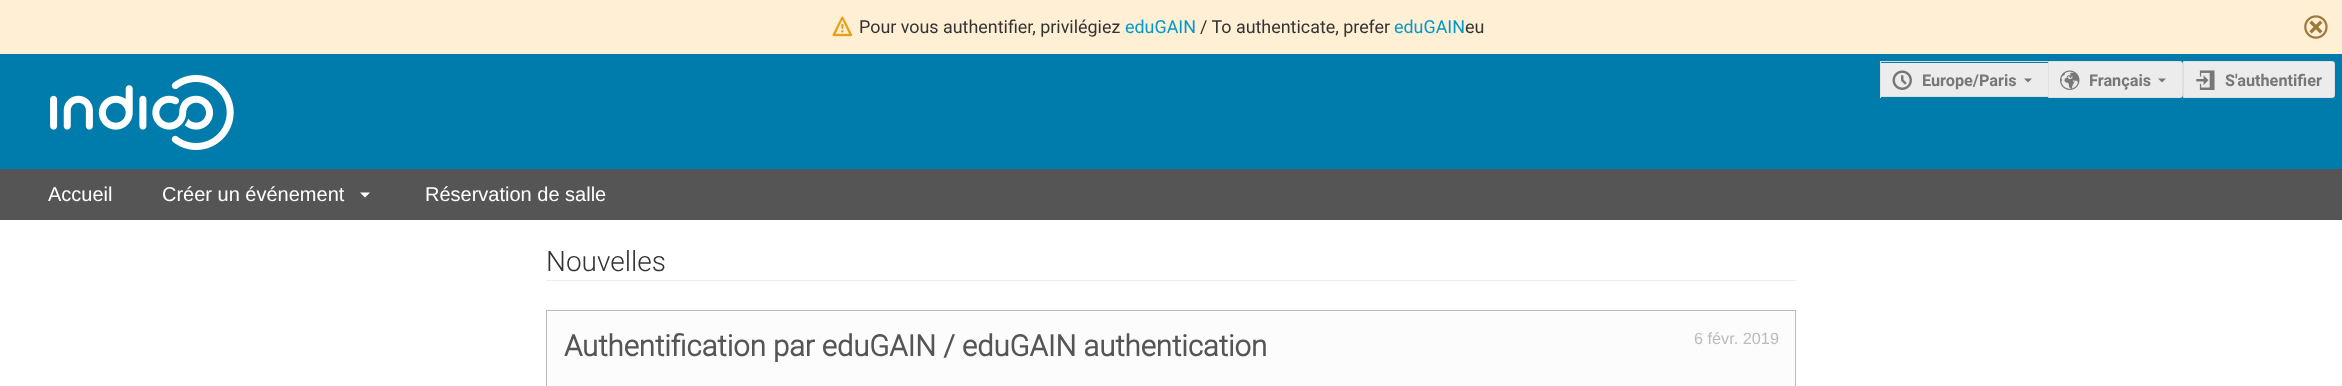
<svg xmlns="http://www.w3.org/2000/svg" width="2342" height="386">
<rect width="100%" height="100%" fill="#fff"/>
<rect width="2342" height="54" fill="#ffefd4"/>
<image x="832" y="16" width="21" height="21" href="media/1.png"/>
<text x="859" y="33" style="font-family:Roboto;font-size:17.9px;fill:#333">Pour vous authentifier, privilégiez</text>
<text x="1125" y="33" style="font-family:Roboto;font-size:17.9px;fill:#09c">eduGAIN</text>
<text x="1200" y="33" style="font-family:Roboto;font-size:17.9px;fill:#333">/ To authenticate, prefer</text>
<text x="1394" y="33" style="font-family:Roboto;font-size:17.9px;fill:#09c">eduGAIN</text>
<text x="1465" y="33" style="font-family:Roboto;font-size:17.9px;fill:#333">eu</text>
<image x="2304" y="15" width="24" height="24" href="media/2.png"/>
<rect y="54" width="2342" height="115" fill="#007cac"/>
<image x="50" y="75" width="184" height="75" href="media/3.png"/>
<rect x="1881" y="63" width="167" height="33" fill="#ececec"/>
<rect x="1880" y="61" width="168" height="1" fill="#dfdfdf"/>
<rect x="1880" y="96" width="168" height="1" fill="#dfdfdf"/>
<rect x="1880" y="61" width="1" height="37" fill="#dfdfdf"/>
<image x="1892" y="70" width="20" height="20" href="media/4.png"/>
<text x="1922" y="86" style="font-family:'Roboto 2';font-size:16.25px;font-weight:bold;fill:#777">Europe/Paris</text>
<path d="M2024 78.5l4 4l4-4z" fill="#777"/>
<path d="M2048.5 61.5h132c1 0 2 1 2 2v32c0 1-1 2-2 2h-132z" fill="#ececec" stroke="#dfdfdf"/>
<image x="2060" y="70" width="20" height="20" href="media/5.png"/>
<text x="2089" y="86" style="font-family:'Roboto 2';font-size:16.25px;font-weight:bold;fill:#777">Français</text>
<path d="M2158 78.5l4 4l4-4z" fill="#777"/>
<path d="M2183.5 61.5h149c1 0 2 1 2 2v32c0 1-1 2-2 2h-149z" fill="#ececec" stroke="#dfdfdf"/>
<image x="2196" y="70" width="19" height="20" href="media/6.png"/>
<text x="2225" y="86" style="font-family:'Roboto 2';font-size:16.25px;font-weight:bold;fill:#777">S'authentifier</text>
<rect y="169" width="2342" height="51" fill="#555"/>
<text x="48" y="201" style="font-family:Liberation Sans;font-size:20px;fill:#fff">Accueil</text>
<text x="162" y="201" style="font-family:Liberation Sans;font-size:20px;fill:#fff">Créer un événement</text>
<path d="M360 192.5l5 5l5-5z" fill="#fff"/>
<text x="425" y="201" style="font-family:Liberation Sans;font-size:20px;fill:#fff">Réservation de salle</text>
<rect x="546" y="280" width="1250" height="1" fill="#ebebeb"/>
<text x="546" y="271" style="font-family:Roboto;font-size:28px;font-weight:300;fill:#333">Nouvelles</text>
<rect x="546.5" y="310.5" width="1249" height="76" fill="#fcfcfc" stroke="#bbb"/>
<text x="564" y="356" style="font-family:Roboto;font-size:29.25px;font-weight:bold;fill:#555">Authentification par eduGAIN / eduGAIN authentication</text>
<text x="1694" y="344" style="font-family:Liberation Sans;font-size:16.25px;fill:#bbb">6 févr. 2019</text>
</svg>
